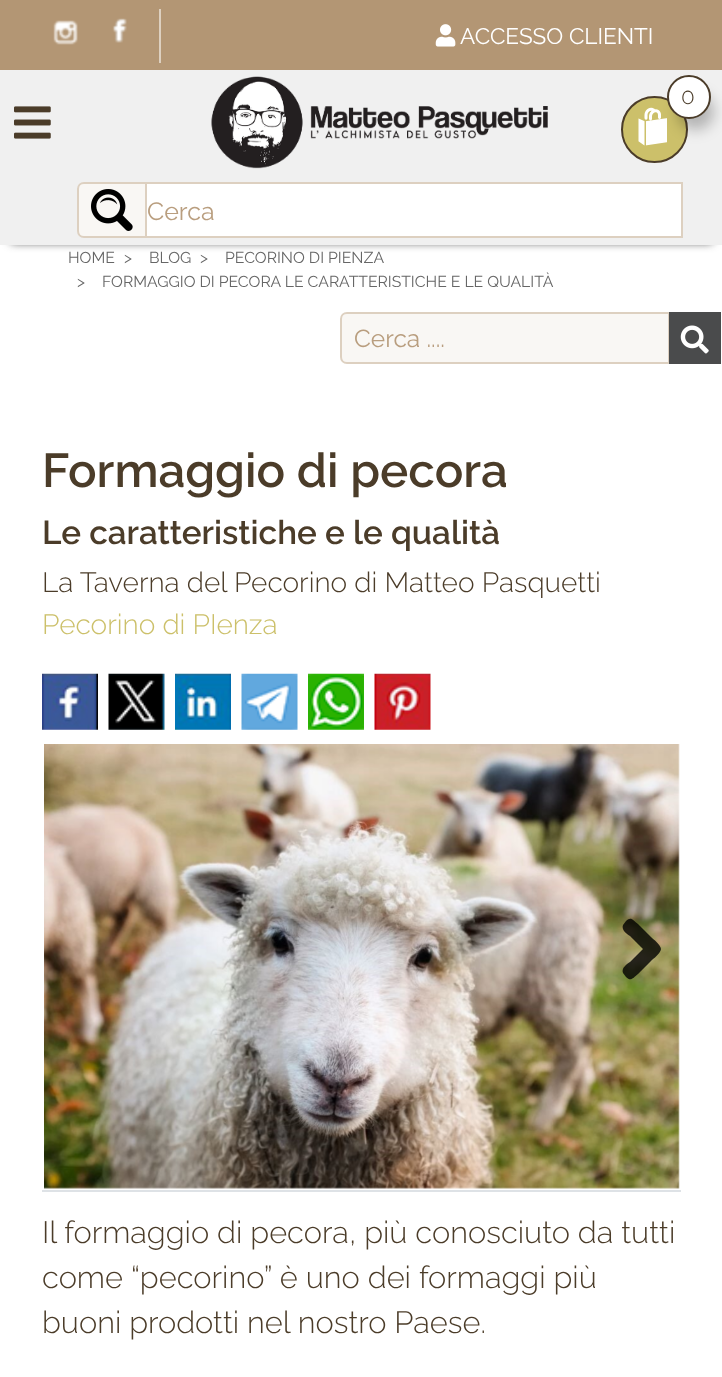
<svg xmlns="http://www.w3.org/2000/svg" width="722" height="1377">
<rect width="100%" height="100%" fill="#fff"/>
<rect width="722" height="70" fill="#b39674"/>
<rect x="159" y="9" width="2" height="54" fill="#ddd0c0"/>
<image x="53" y="20" width="25" height="25" href="media/1.png"/>
<image x="112" y="18" width="15" height="25" href="media/2.png"/>
<image x="435" y="24" width="21" height="23" href="media/3.png"/>
<text x="460" y="44" style="font-family:Raleway;font-size:22.5px;fill:#fff">ACCESSO CLIENTI</text>
<rect x="11" y="88" width="701" height="154" fill="#222" filter="blur(5px)"/>
<rect y="70" width="722" height="175" fill="#f0f0f0"/>
<circle cx="654.5" cy="129.5" r="32.5" fill="#ccc06a" stroke="#4b3c29" stroke-width="2"/>
<image x="638" y="107" width="29" height="39" href="media/4.png"/>
<rect x="677" y="93" width="37" height="37" rx="18.5" fill="#00000040" filter="blur(7px)"/>
<circle cx="689" cy="97" r="21" fill="#fff" stroke="#4b3c29" stroke-width="2"/>
<text x="681" y="104" style="font-family:Raleway;font-size:22.5px;font-weight:300;fill:#4b3c29">0</text>
<image x="14" y="106" width="37" height="33" href="media/5.png"/>
<image x="211" y="76" width="337" height="93" href="media/6.png"/>
<path d="M84 183h62v54h-62c-3.5 0-6-2.5-6-6v-42c0-3.5 2.5-6 6-6z" fill="#f9f7f4" stroke="#ddd0c0" stroke-width="2"/>
<image x="91" y="189" width="42" height="42" href="media/7.png"/>
<rect x="146" y="183" width="536" height="54" fill="#fff" stroke="#ddd0c0" stroke-width="2"/>
<text x="147" y="220" style="font-family:Raleway;font-size:25px;fill:#b99e7f">Cerca</text>
<text x="68" y="263" style="font-family:Raleway;font-size:15.75px;fill:#666">HOME</text>
<text x="124" y="263" style="font-family:Raleway;font-size:15.75px;fill:#666">&gt;</text>
<text x="149" y="263" style="font-family:Raleway;font-size:15.75px;fill:#666">BLOG</text>
<text x="200" y="263" style="font-family:Raleway;font-size:15.75px;fill:#666">&gt;</text>
<text x="225" y="263" style="font-family:Raleway;font-size:15.75px;fill:#666">PECORINO DI PIENZA</text>
<text x="77" y="287" style="font-family:Raleway;font-size:15.75px;fill:#666">&gt;</text>
<text x="102" y="287" style="font-family:Raleway;font-size:15.75px;fill:#666">FORMAGGIO DI PECORA LE CARATTERISTICHE E LE QUALITÀ</text>
<path d="M347 313h322v50h-322c-3.5 0-6-2.5-6-6v-38c0-3.5 2.5-6 6-6z" fill="#f9f7f4" stroke="#ddd0c0" stroke-width="2"/>
<text x="354" y="347" style="font-family:Raleway;font-size:24.5px;fill:#b99e7f">Cerca ....</text>
<rect x="669" y="312" width="52" height="52" fill="#4a4b4c"/>
<image x="680" y="325" width="29" height="29" href="media/8.png"/>
<text x="42" y="487" style="font-family:Raleway;font-size:47.5px;font-weight:600;fill:#4b3c29">Formaggio di pecora</text>
<text x="42" y="544" style="font-family:Raleway;font-size:33.25px;font-weight:600;fill:#4b3c29">Le caratteristiche e le qualità</text>
<text x="42" y="592" style="font-family:Raleway;font-size:28px;font-weight:300;fill:#4b3c29">La Taverna del Pecorino di Matteo Pasquetti</text>
<text x="42" y="634" style="font-family:Raleway;font-size:28px;font-weight:300;fill:#ccc06a">Pecorino di PIenza</text>
<image x="42" y="673" width="56" height="57" href="media/9.png"/>
<image x="108" y="673" width="57" height="57" href="media/10.png"/>
<image x="175" y="673" width="56" height="57" href="media/11.png"/>
<image x="241" y="673" width="57" height="57" href="media/12.png"/>
<image x="308" y="673" width="56" height="57" href="media/13.png"/>
<image x="374" y="673" width="57" height="57" href="media/14.png"/>
<rect x="42" y="1190" width="639" height="2" fill="#dee2e6"/>
<image x="44" y="744" width="636" height="445" href="media/15.png"/>
<path d="M661 949c0 4-8 10-10 12l-13 13c-5 4-7 8-12 3l-3-4c-2-5 4-9 7-11l13-13l-13-13c-3-2-9-6-7-11l3-4c5-5 7-1 12 3l13 13c2 2 10 8 10 12z" fill="#000000cc"/>
<text x="42" y="1243" style="font-family:Raleway;font-size:30.8px;font-weight:300;fill:#4b3c29">Il formaggio di pecora, più conosciuto da tutti</text>
<text x="42" y="1288" style="font-family:Raleway;font-size:30.8px;font-weight:300;fill:#4b3c29">come “pecorino” è uno dei formaggi più</text>
<text x="42" y="1333" style="font-family:Raleway;font-size:30.8px;font-weight:300;fill:#4b3c29">buoni prodotti nel nostro Paese.</text>
</svg>
